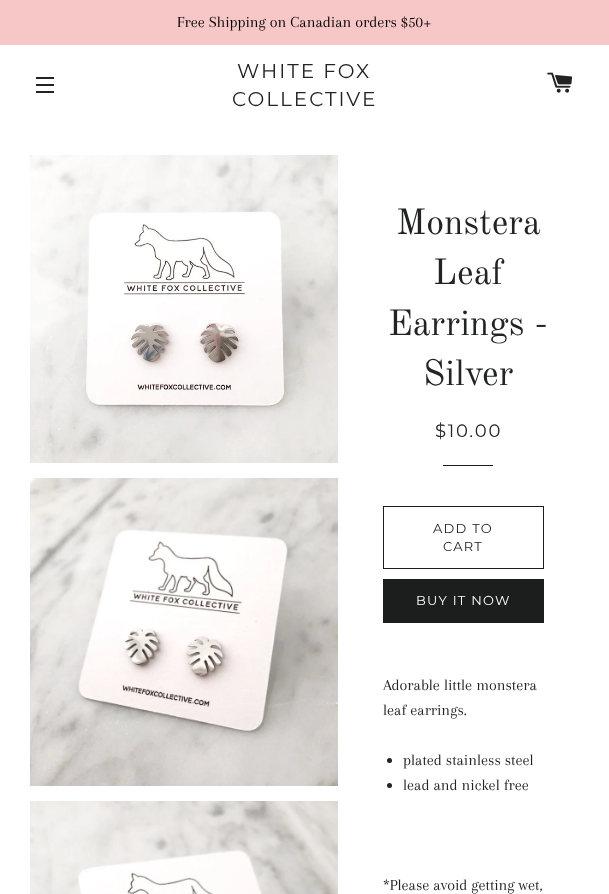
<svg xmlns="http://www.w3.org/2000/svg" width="609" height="894">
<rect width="100%" height="100%" fill="#fff"/>
<rect width="609" height="45" fill="#f7c7c7"/>
<text x="177" y="27" style="font-family:Arapey;font-size:16px;fill:#000">Free Shipping on Canadian orders $50+</text>
<rect x="36" y="77" width="18" height="2" fill="#222323"/>
<rect x="36" y="84" width="18" height="2" fill="#222323"/>
<rect x="36" y="91" width="18" height="2" fill="#222323"/>
<text x="237" y="78" style="font-family:Montserrat;font-size:20px;letter-spacing:2px;fill:#222323">WHITE FOX</text>
<text x="232" y="106" style="font-family:Montserrat;font-size:20px;letter-spacing:2px;fill:#222323">COLLECTIVE</text>
<image x="547" y="72" width="26" height="21" href="media/1.png"/>
<image x="30" y="155" width="308" height="308" href="media/2.png"/>
<image x="30" y="478" width="308" height="308" href="media/3.png"/>
<image x="30" y="801" width="308" height="93" href="media/4.png"/>
<text x="396" y="234" style="font-family:Old Standard TT;font-size:36px;fill:#222323">Monstera</text>
<text x="433" y="284" style="font-family:Old Standard TT;font-size:36px;fill:#222323">Leaf</text>
<text x="388" y="335" style="font-family:Old Standard TT;font-size:36px;fill:#222323">Earrings -</text>
<text x="423" y="385" style="font-family:Old Standard TT;font-size:36px;fill:#222323">Silver</text>
<text x="435" y="437" style="font-family:Montserrat;font-size:18px;letter-spacing:1.75px;fill:#222323">$10.00</text>
<rect x="443" y="465" width="50" height="1" fill="#1c1d1d"/>
<rect x="383.5" y="506.5" width="160" height="62" fill="none" stroke="#1c1d1d"/>
<text x="433" y="533" style="font-family:Montserrat;font-size:13px;letter-spacing:1.25px;fill:#1c1d1d">ADD TO</text>
<text x="443" y="551" style="font-family:Montserrat;font-size:13px;letter-spacing:1.25px;fill:#1c1d1d">CART</text>
<rect x="383" y="579" width="161" height="44" fill="#1c1d1d"/>
<text x="416" y="605" style="font-family:Montserrat;font-size:13px;letter-spacing:1.25px;fill:#fff">BUY IT NOW</text>
<text x="383" y="690" style="font-family:Arapey;font-size:16px;fill:#222323">Adorable little monstera</text>
<text x="383" y="715" style="font-family:Arapey;font-size:16px;fill:#222323">leaf earrings.</text>
<circle cx="389.5" cy="760.5" r="2.5" fill="#222323"/>
<text x="403" y="765" style="font-family:Arapey;font-size:16px;fill:#222323">plated stainless steel</text>
<circle cx="389.5" cy="785.5" r="2.5" fill="#222323"/>
<text x="403" y="790" style="font-family:Arapey;font-size:16px;fill:#222323">lead and nickel free</text>
<text x="383" y="890" style="font-family:Arapey;font-size:16px;fill:#222323">*Please avoid getting wet,</text>
</svg>
